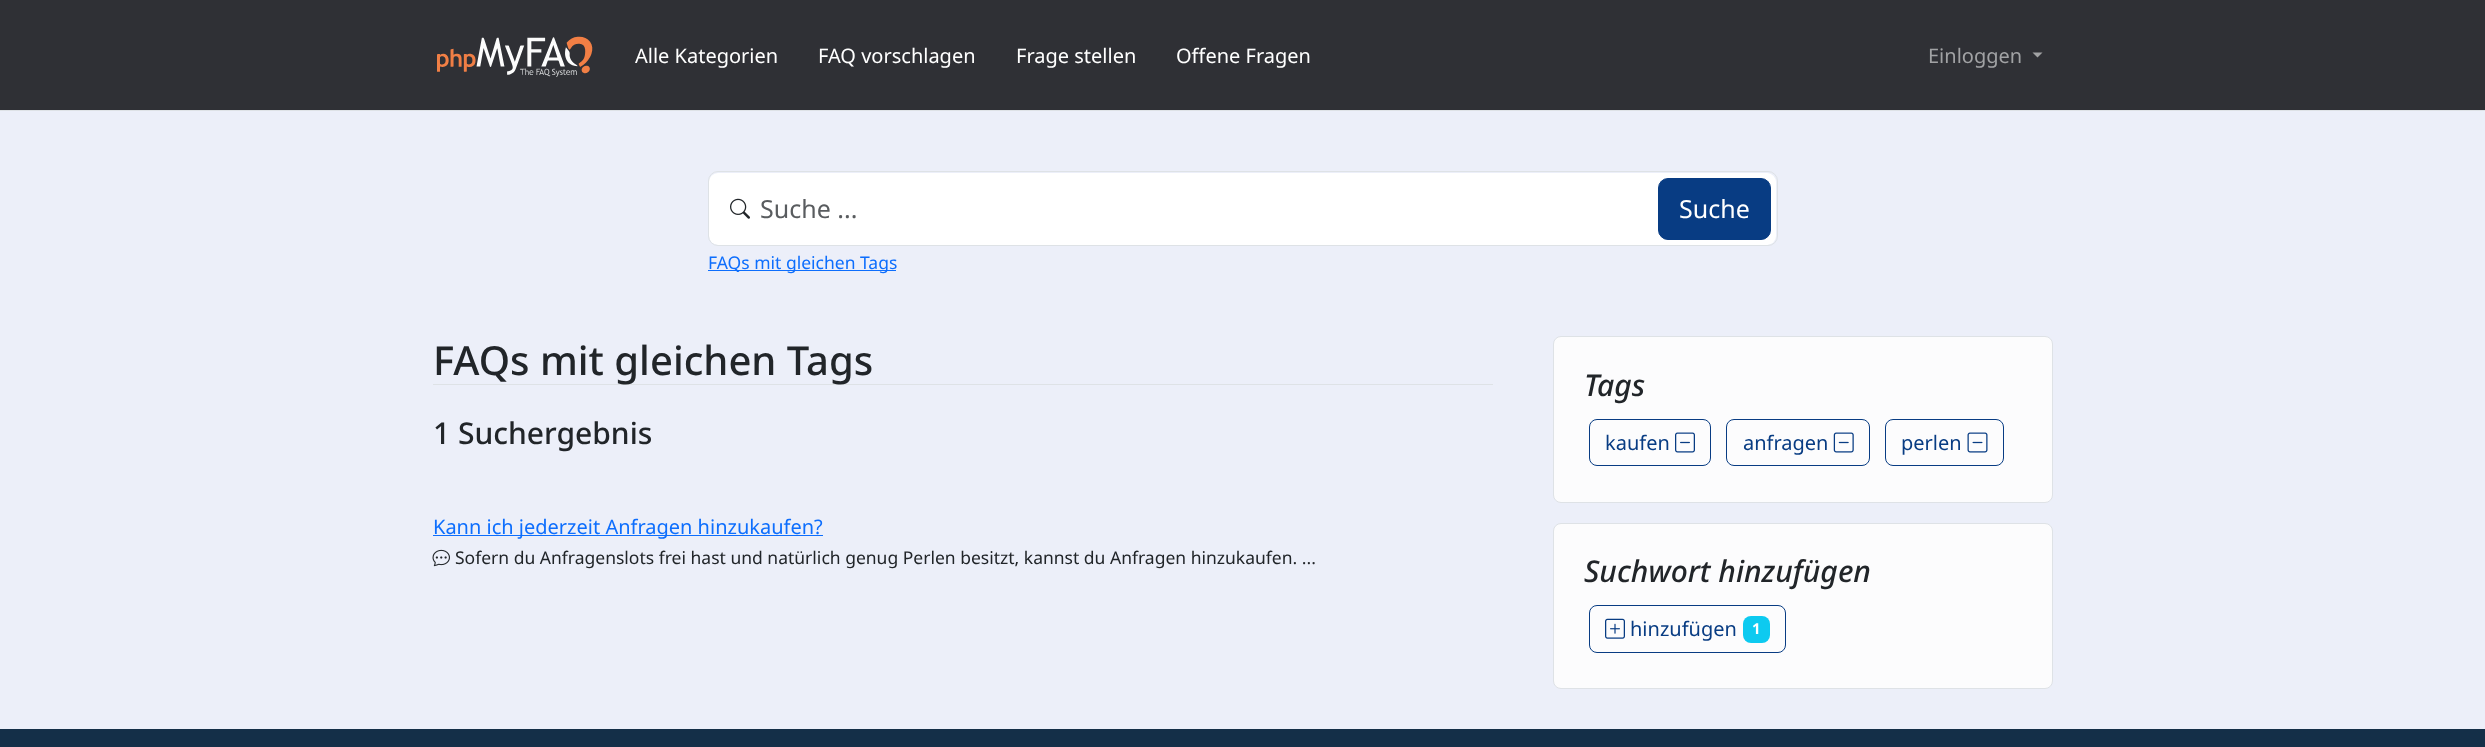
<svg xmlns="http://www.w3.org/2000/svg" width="2485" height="747">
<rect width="100%" height="100%" fill="#eceff9"/>
<rect width="2485" height="110" fill="#2f3035"/>
<rect y="110" width="2485" height="1" fill="#dee2e6"/>
<image x="437" y="36" width="156" height="41" href="media/1.png"/>
<text x="635" y="63" style="font-family:Noto Sans;font-size:20px;fill:#fff">Alle Kategorien</text>
<text x="818" y="63" style="font-family:Noto Sans;font-size:20px;fill:#fff">FAQ vorschlagen</text>
<text x="1016" y="63" style="font-family:Noto Sans;font-size:20px;fill:#fff">Frage stellen</text>
<text x="1176" y="63" style="font-family:Noto Sans;font-size:20px;fill:#fff">Offene Fragen</text>
<text x="1928" y="63" style="font-family:Noto Sans;font-size:20px;fill:#a1a2a4">Einloggen</text>
<path d="M2032.5 52.5h10l-5 5z" fill="#a1a2a4"/>
<rect x="709" y="173" width="1067" height="72" rx="9" fill="#fff"/>
<rect x="708.5" y="171.5" width="1069" height="74" rx="9.5" fill="none" stroke="#dee2e6"/>
<image x="730" y="198" width="20" height="21" href="media/2.png"/>
<text x="760" y="218" style="font-family:Noto Sans;font-size:25px;fill:#595c5f">Suche ...</text>
<rect x="1658.5" y="178.5" width="112" height="61" rx="9.5" fill="#083c83" stroke="#083c83"/>
<text x="1679" y="218" style="font-family:Noto Sans;font-size:25px;fill:#fff">Suche</text>
<rect x="708" y="270" width="188" height="1" fill="#0d6efd"/>
<text x="708" y="269" style="font-family:Noto Sans;font-size:17.5px;fill:#0d6efd">FAQs mit gleichen Tags</text>
<rect x="433" y="384" width="1060" height="1" fill="#dee2e6"/>
<text x="433" y="375" style="font-family:Noto Sans;font-size:40px;font-weight:500;fill:#212529">FAQs mit gleichen Tags</text>
<text x="433" y="444" style="font-family:Noto Sans;font-size:30px;font-weight:500;fill:#212529">1 Suchergebnis</text>
<rect x="433" y="535" width="390" height="1" fill="#0d6efd"/>
<text x="433" y="534" style="font-family:Noto Sans;font-size:20px;fill:#0d6efd">Kann ich jederzeit Anfragen hinzukaufen?</text>
<image x="432" y="549" width="18" height="18" href="media/3.png"/>
<text x="455" y="564" style="font-family:Noto Sans;font-size:17.5px;fill:#212529">Sofern du Anfragenslots frei hast und natürlich genug Perlen besitzt, kannst du Anfragen hinzukaufen. ...</text>
<rect x="1553.5" y="336.5" width="499" height="166" rx="7.5" fill="#fcfcfd" stroke="#dee2e6"/>
<text x="1584" y="396" style="font-family:Noto Sans;font-size:30px;font-weight:500;font-style:italic;fill:#212529">Tags</text>
<rect x="1589.5" y="419.5" width="121" height="46" rx="7.5" fill="none" stroke="#083c83"/>
<text x="1605" y="450" style="font-family:Noto Sans;font-size:20px;fill:#083c83">kaufen</text>
<image x="1675" y="432" width="20" height="21" href="media/4.png"/>
<rect x="1726.5" y="419.5" width="143" height="46" rx="7.5" fill="none" stroke="#083c83"/>
<text x="1743" y="450" style="font-family:Noto Sans;font-size:20px;fill:#083c83">anfragen</text>
<image x="1833" y="432" width="21" height="21" href="media/5.png"/>
<rect x="1885.5" y="419.5" width="118" height="46" rx="7.5" fill="none" stroke="#083c83"/>
<text x="1901" y="450" style="font-family:Noto Sans;font-size:20px;fill:#083c83">perlen</text>
<image x="1967" y="432" width="21" height="21" href="media/6.png"/>
<rect x="1553.5" y="523.5" width="499" height="165" rx="7.5" fill="#fcfcfd" stroke="#dee2e6"/>
<text x="1584" y="582" style="font-family:Noto Sans;font-size:30px;font-weight:500;font-style:italic;fill:#212529">Suchwort hinzufügen</text>
<rect x="1589.5" y="605.5" width="196" height="47" rx="7.5" fill="none" stroke="#083c83"/>
<image x="1605" y="618" width="20" height="21" href="media/7.png"/>
<text x="1630" y="636" style="font-family:Noto Sans;font-size:20px;fill:#083c83">hinzufügen</text>
<rect x="1743" y="616" width="27" height="27" rx="8" fill="#0dcaf0"/>
<text x="1752" y="634" style="font-family:Noto Sans;font-size:15px;font-weight:bold;fill:#fff">1</text>
<rect y="729" width="2485" height="18" fill="#142f48"/>
</svg>
